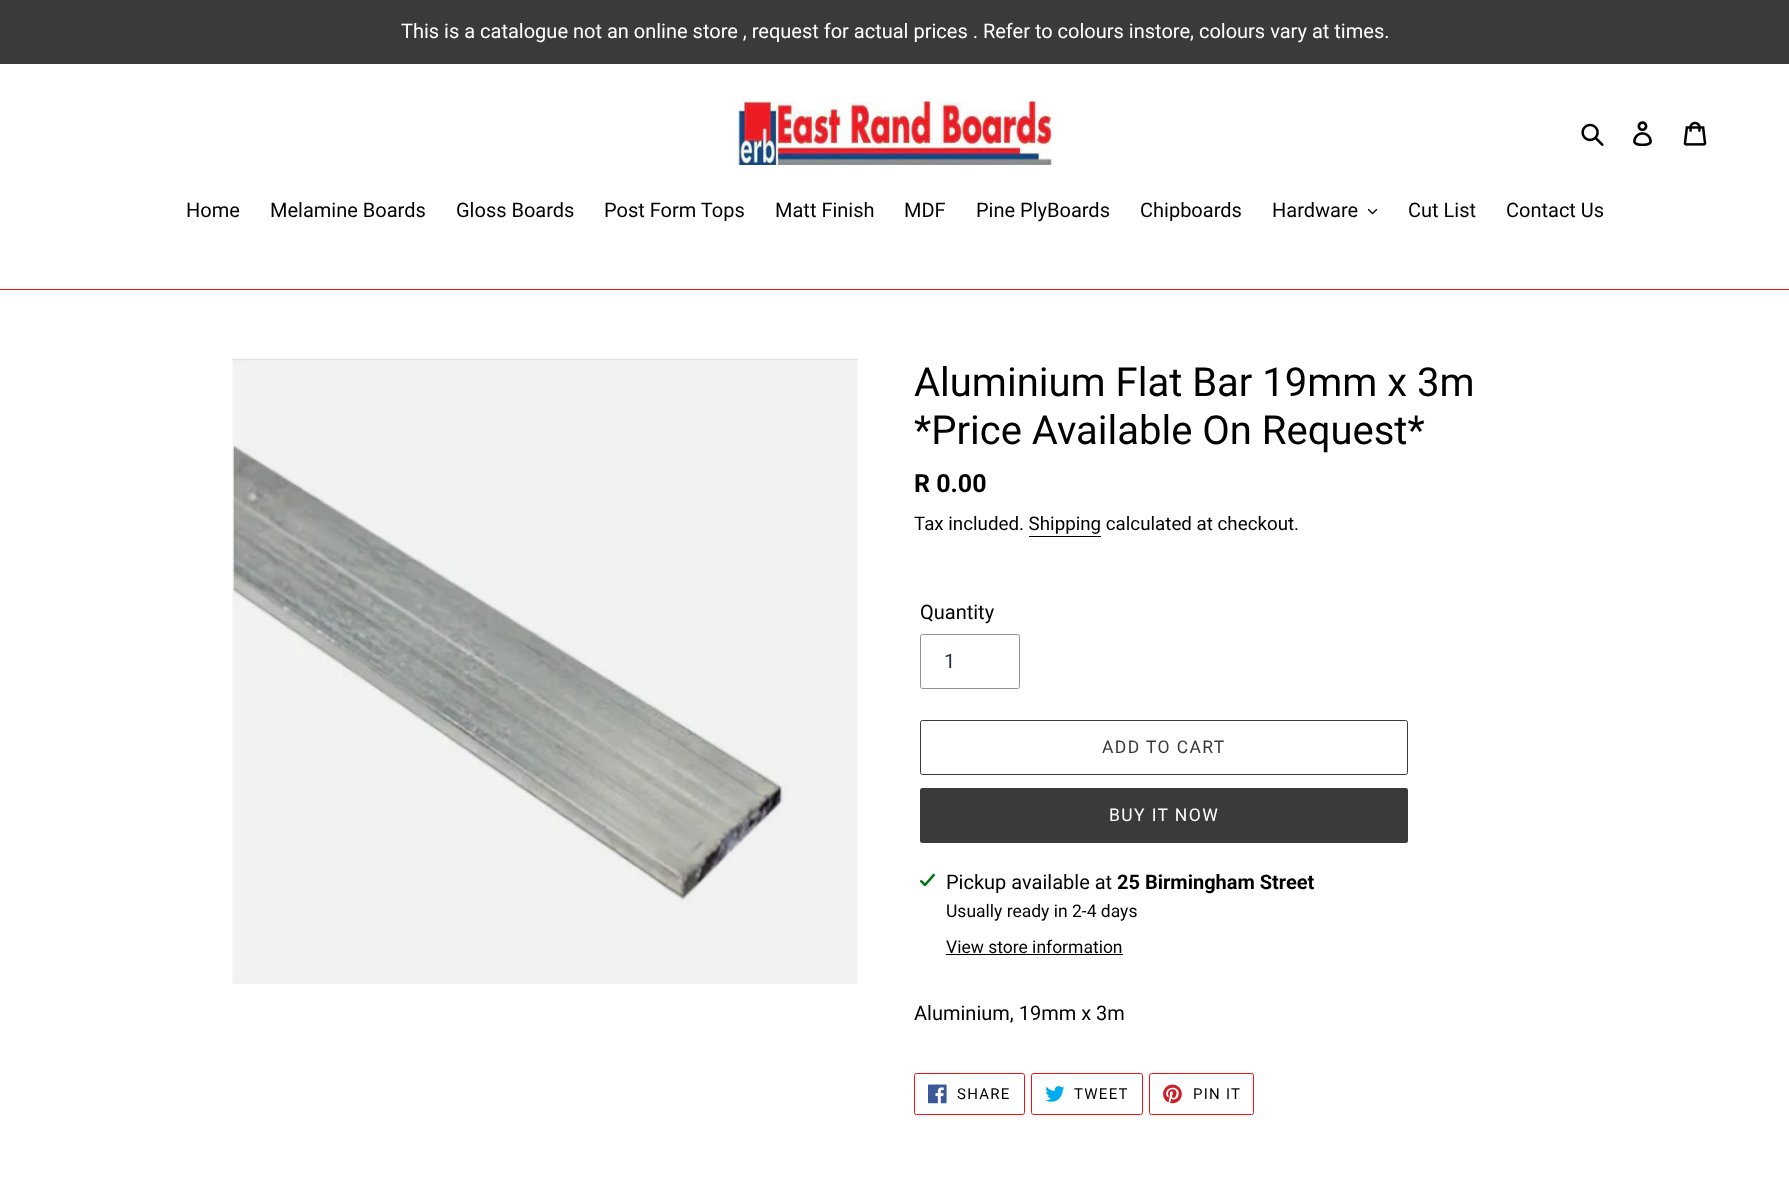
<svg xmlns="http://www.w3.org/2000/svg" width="1789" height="1186">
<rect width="100%" height="100%" fill="#fff"/>
<rect width="1789" height="64" fill="#3a3a3a"/>
<text x="401" y="38" style="font-family:Roboto;font-size:20px;fill:#fff">This is a catalogue not an online store , request for actual prices . Refer to colours instore, colours vary at times.</text>
<image x="738" y="101" width="314" height="64" href="media/1.png"/>
<image x="1581" y="123" width="23" height="23" href="media/2.png"/>
<image x="1633" y="121" width="19" height="25" href="media/3.png"/>
<image x="1683" y="121" width="24" height="25" href="media/4.png"/>
<rect y="289" width="1789" height="1" fill="#f51111"/>
<text x="186" y="217" style="font-family:Roboto;font-size:20px;fill:#000">Home</text>
<text x="270" y="217" style="font-family:Roboto;font-size:20px;fill:#000">Melamine Boards</text>
<text x="456" y="217" style="font-family:Roboto;font-size:20px;fill:#000">Gloss Boards</text>
<text x="604" y="217" style="font-family:Roboto;font-size:20px;fill:#000">Post Form Tops</text>
<text x="775" y="217" style="font-family:Roboto;font-size:20px;fill:#000">Matt Finish</text>
<text x="904" y="217" style="font-family:Roboto;font-size:20px;fill:#000">MDF</text>
<text x="976" y="217" style="font-family:Roboto;font-size:20px;fill:#000">Pine PlyBoards</text>
<text x="1140" y="217" style="font-family:Roboto;font-size:20px;fill:#000">Chipboards</text>
<text x="1272" y="217" style="font-family:Roboto;font-size:20px;fill:#000">Hardware</text>
<image x="1368" y="208" width="10" height="7" href="media/5.png"/>
<text x="1408" y="217" style="font-family:Roboto;font-size:20px;fill:#000">Cut List</text>
<text x="1506" y="217" style="font-family:Roboto;font-size:20px;fill:#000">Contact Us</text>
<image x="232" y="358" width="626" height="626" href="media/6.png"/>
<text x="914" y="396" style="font-family:Roboto;font-size:40px;fill:#000">Aluminium Flat Bar 19mm x 3m</text>
<text x="914" y="444" style="font-family:Roboto;font-size:40px;fill:#000">*Price Available On Request*</text>
<text x="914" y="492" style="font-family:Roboto;font-size:25px;font-weight:bold;fill:#000">R 0.00</text>
<text x="914" y="530" style="font-family:Roboto;font-size:18.75px;fill:#000">Tax included. Shipping calculated at checkout.</text>
<rect x="1029" y="536" width="72" height="1" fill="#000"/>
<text x="920" y="619" style="font-family:Roboto;font-size:20px;fill:#000">Quantity</text>
<rect x="920.5" y="634.5" width="99" height="54" rx="2" fill="none" stroke="#909090"/>
<text x="944" y="668" style="font-family:Roboto;font-size:20px;fill:#23314e">1</text>
<rect x="920.5" y="720.5" width="487" height="54" rx="2" fill="none" stroke="#3a3a3a"/>
<text x="1102" y="753" style="font-family:Roboto;font-size:17.5px;letter-spacing:1.4px;fill:#3a3a3a">ADD TO CART</text>
<rect x="920" y="788" width="488" height="55" rx="2.5" fill="#3a3a3a"/>
<text x="1109" y="821" style="font-family:Roboto;font-size:17.5px;letter-spacing:1.4px;fill:#fff">BUY IT NOW</text>
<image x="920" y="873" width="15" height="14" href="media/7.png"/>
<text x="946" y="889" style="font-family:Roboto;font-size:20px;fill:#000">Pickup available at</text>
<text x="1117" y="889" style="font-family:Roboto;font-size:20px;font-weight:bold;fill:#000">25 Birmingham Street</text>
<text x="946" y="917" style="font-family:Roboto;font-size:17.5px;fill:#000">Usually ready in 2-4 days</text>
<text x="946" y="953" style="font-family:Roboto;font-size:17.5px;fill:#000">View store information</text>
<rect x="946" y="954" width="177" height="1" fill="#000"/>
<text x="914" y="1020" style="font-family:Roboto;font-size:20px;fill:#000">Aluminium, 19mm x 3m</text>
<rect x="914.5" y="1073.5" width="110" height="41" rx="2" fill="none" stroke="#f51111"/>
<image x="928" y="1084" width="19" height="20" href="media/8.png"/>
<text x="957" y="1099" style="font-family:Roboto;font-size:15px;letter-spacing:1.25px;fill:#000">SHARE</text>
<rect x="1031.5" y="1073.5" width="111" height="41" rx="2" fill="none" stroke="#f51111"/>
<image x="1045" y="1086" width="20" height="16" href="media/9.png"/>
<text x="1074" y="1099" style="font-family:Roboto;font-size:15px;letter-spacing:1.25px;fill:#000">TWEET</text>
<rect x="1149.5" y="1073.5" width="104" height="41" rx="2" fill="none" stroke="#f51111"/>
<image x="1163" y="1084" width="19" height="20" href="media/10.png"/>
<text x="1193" y="1099" style="font-family:Roboto;font-size:15px;letter-spacing:1.25px;fill:#000">PIN IT</text>
</svg>
